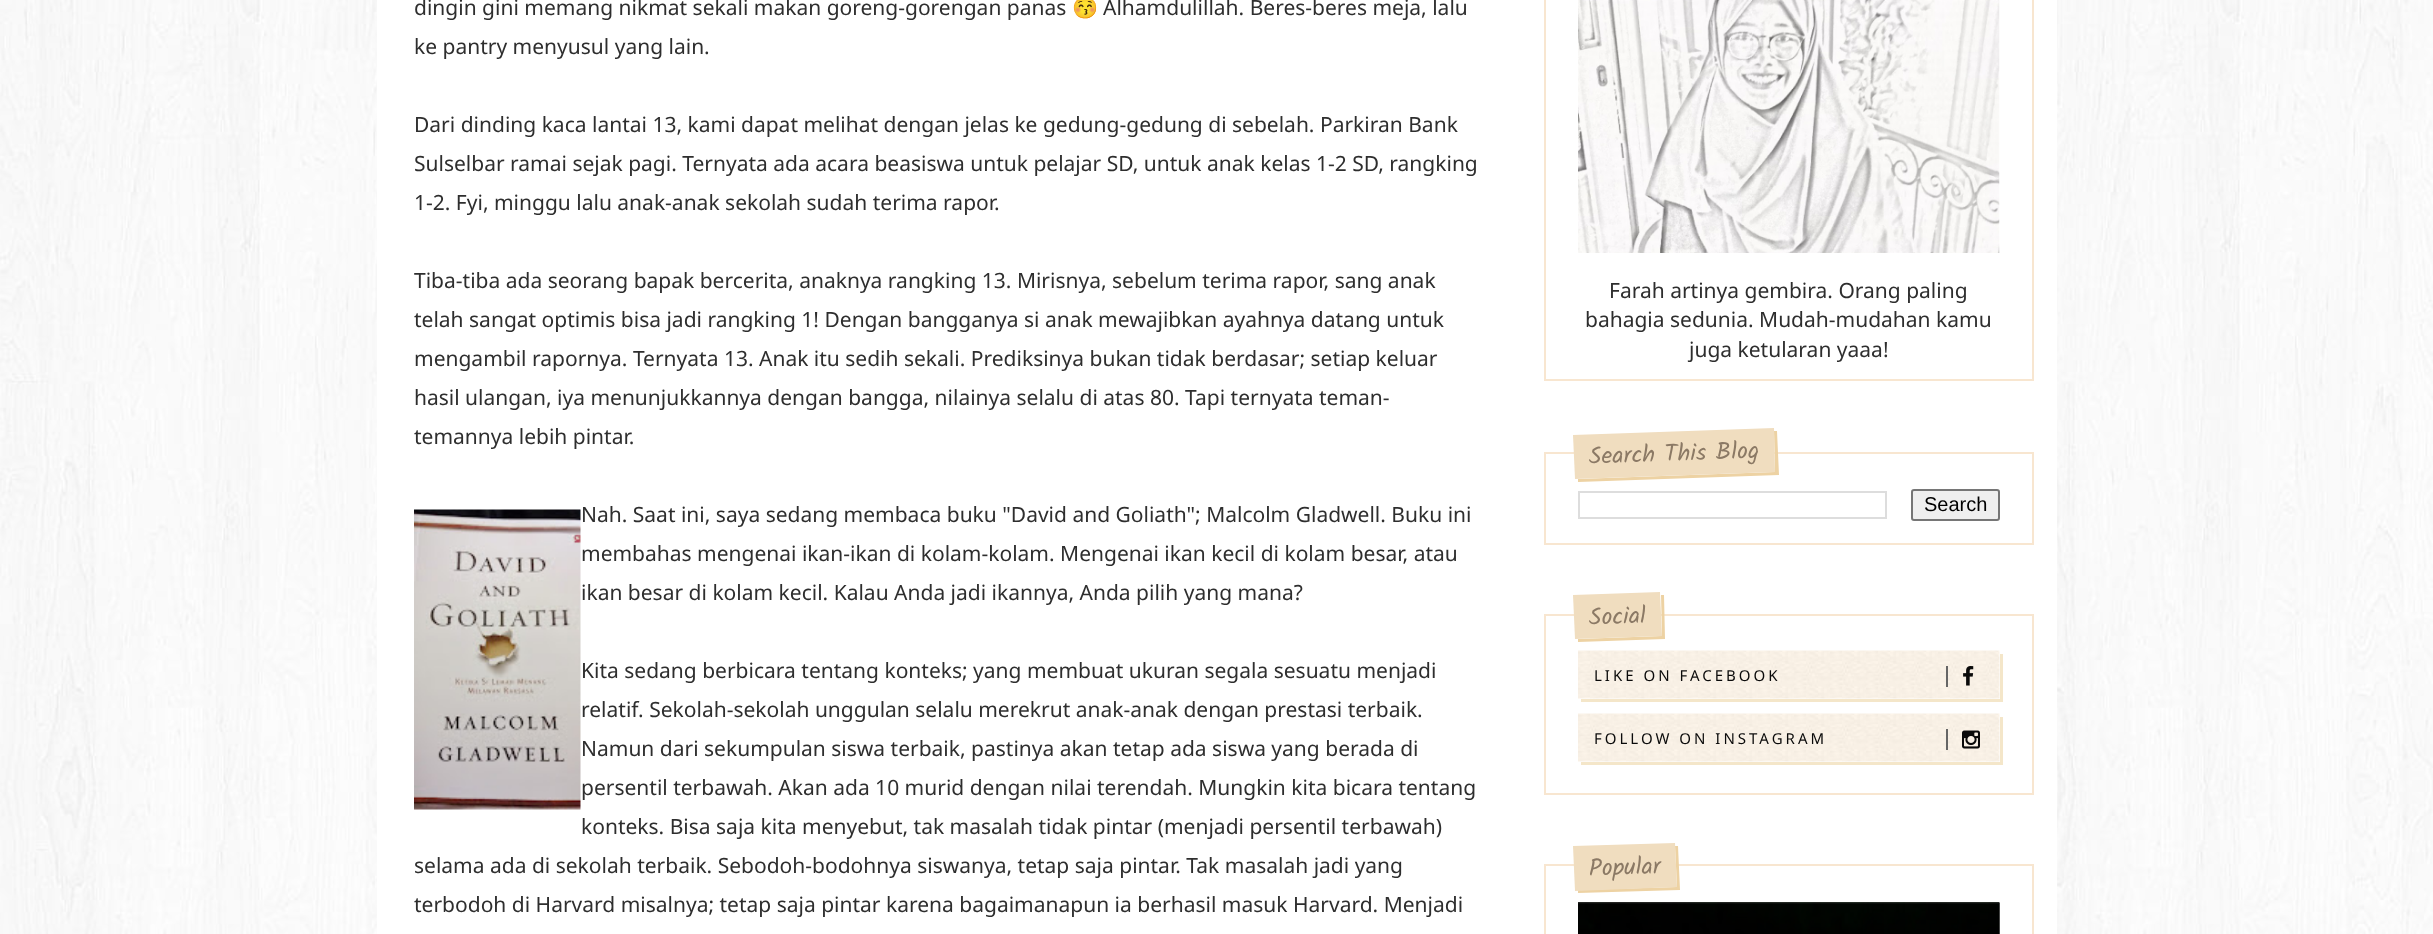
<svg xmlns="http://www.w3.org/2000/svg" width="2433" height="934">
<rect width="100%" height="100%" fill="#fff"/>
<image x="0" y="0" width="2433" height="934" href="media/1.png"/>
<rect x="377" width="1680" height="934" fill="#fff"/>
<text x="414" y="15" style="font-family:Noto Sans;font-size:21px;fill:#2e2e2e">dingin gini memang nikmat sekali makan goreng-gorengan panas</text>
<text x="1072" y="15" style="font-family:Noto Color Emoji;font-size:21px;fill:#2e2e2e">😚</text>
<text x="1103" y="15" style="font-family:Noto Sans;font-size:21px;fill:#2e2e2e">Alhamdulillah. Beres-beres meja, lalu</text>
<text x="414" y="54" style="font-family:Noto Sans;font-size:21px;fill:#2e2e2e">ke pantry menyusul yang lain.</text>
<text x="414" y="132" style="font-family:Noto Sans;font-size:21px;fill:#2e2e2e">Dari dinding kaca lantai 13, kami dapat melihat dengan jelas ke gedung-gedung di sebelah. Parkiran Bank</text>
<text x="414" y="171" style="font-family:Noto Sans;font-size:21px;fill:#2e2e2e">Sulselbar ramai sejak pagi. Ternyata ada acara beasiswa untuk pelajar SD, untuk anak kelas 1-2 SD, rangking</text>
<text x="414" y="210" style="font-family:Noto Sans;font-size:21px;fill:#2e2e2e">1-2. Fyi, minggu lalu anak-anak sekolah sudah terima rapor.</text>
<text x="414" y="288" style="font-family:Noto Sans;font-size:21px;fill:#2e2e2e">Tiba-tiba ada seorang bapak bercerita, anaknya rangking 13. Mirisnya, sebelum terima rapor, sang anak</text>
<text x="414" y="327" style="font-family:Noto Sans;font-size:21px;fill:#2e2e2e">telah sangat optimis bisa jadi rangking 1! Dengan bangganya si anak mewajibkan ayahnya datang untuk</text>
<text x="414" y="366" style="font-family:Noto Sans;font-size:21px;fill:#2e2e2e">mengambil rapornya. Ternyata 13. Anak itu sedih sekali. Prediksinya bukan tidak berdasar; setiap keluar</text>
<text x="414" y="405" style="font-family:Noto Sans;font-size:21px;fill:#2e2e2e">hasil ulangan, iya menunjukkannya dengan bangga, nilainya selalu di atas 80. Tapi ternyata teman-</text>
<text x="414" y="444" style="font-family:Noto Sans;font-size:21px;fill:#2e2e2e">temannya lebih pintar.</text>
<image x="414" y="509" width="167" height="301" href="media/2.png"/>
<text x="581" y="522" style="font-family:Noto Sans;font-size:21px;fill:#2e2e2e">Nah. Saat ini, saya sedang membaca buku "David and Goliath"; Malcolm Gladwell. Buku ini</text>
<text x="581" y="561" style="font-family:Noto Sans;font-size:21px;fill:#2e2e2e">membahas mengenai ikan-ikan di kolam-kolam. Mengenai ikan kecil di kolam besar, atau</text>
<text x="581" y="600" style="font-family:Noto Sans;font-size:21px;fill:#2e2e2e">ikan besar di kolam kecil. Kalau Anda jadi ikannya, Anda pilih yang mana?</text>
<text x="581" y="678" style="font-family:Noto Sans;font-size:21px;fill:#2e2e2e">Kita sedang berbicara tentang konteks; yang membuat ukuran segala sesuatu menjadi</text>
<text x="581" y="717" style="font-family:Noto Sans;font-size:21px;fill:#2e2e2e">relatif. Sekolah-sekolah unggulan selalu merekrut anak-anak dengan prestasi terbaik.</text>
<text x="581" y="756" style="font-family:Noto Sans;font-size:21px;fill:#2e2e2e">Namun dari sekumpulan siswa terbaik, pastinya akan tetap ada siswa yang berada di</text>
<text x="581" y="795" style="font-family:Noto Sans;font-size:21px;fill:#2e2e2e">persentil terbawah. Akan ada 10 murid dengan nilai terendah. Mungkin kita bicara tentang</text>
<text x="581" y="834" style="font-family:Noto Sans;font-size:21px;fill:#2e2e2e">konteks. Bisa saja kita menyebut, tak masalah tidak pintar (menjadi persentil terbawah)</text>
<text x="414" y="873" style="font-family:Noto Sans;font-size:21px;fill:#2e2e2e">selama ada di sekolah terbaik. Sebodoh-bodohnya siswanya, tetap saja pintar. Tak masalah jadi yang</text>
<text x="414" y="912" style="font-family:Noto Sans;font-size:21px;fill:#2e2e2e">terbodoh di Harvard misalnya; tetap saja pintar karena bagaimanapun ia berhasil masuk Harvard. Menjadi</text>
<rect x="1545" y="-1" width="488" height="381" fill="none" stroke="#f8e6d0" stroke-width="2"/>
<image x="1578" y="0" width="422" height="253" href="media/3.png"/>
<text x="1609" y="298" style="font-family:Noto Sans;font-size:21px;fill:#2e2e2e">Farah artinya gembira. Orang paling</text>
<text x="1585" y="327" style="font-family:Noto Sans;font-size:21px;fill:#2e2e2e">bahagia sedunia. Mudah-mudahan kamu</text>
<text x="1689" y="357" style="font-family:Noto Sans;font-size:21px;fill:#2e2e2e">juga ketularan yaaa!</text>
<rect x="1545" y="453" width="488" height="91" fill="none" stroke="#f8e6d0" stroke-width="2"/>
<path d="M1578 479v3l201-7l-2-44h-3l1 41z" fill="#edd2a3"/>
<path d="M1573 435l201-7l1 44l-200 7z" fill="#f0ddbf"/>
<text x="1589" y="464" transform="rotate(-2 1589 464)" style="font-family:Kalam;font-size:24px;fill:#8b7965">Search This Blog</text>
<rect x="1579" y="492" width="307" height="26" fill="none" stroke="#ddd" stroke-width="2"/>
<rect x="1912" y="490" width="87" height="30" rx="2" fill="#efefef" stroke="#767676" stroke-width="2"/>
<text x="1924" y="511" style="font-family:Liberation Sans;font-size:20px;fill:#000">Search</text>
<rect x="1545" y="615" width="488" height="179" fill="none" stroke="#f8e6d0" stroke-width="2"/>
<path d="M1578 639v3l87-3l-1-44h-3l1 41z" fill="#edd2a3"/>
<path d="M1573 595l87-3l2 44l-87 3z" fill="#f0ddbf"/>
<text x="1589" y="625" transform="rotate(-2 1589 625)" style="font-family:Kalam;font-size:24px;fill:#8b7965">Social</text>
<path d="M1581 699v3h422v-48h-3v45z" fill="#f4e6c9"/>
<image x="1578" y="650" width="422" height="49" href="media/4.png"/>
<text x="1594" y="681" style="font-family:Noto Sans;font-size:15px;letter-spacing:3px;fill:#0a0a0a">LIKE ON FACEBOOK</text>
<rect x="1946" y="666" width="2" height="21" fill="#666"/>
<image x="1963" y="666" width="11" height="20" href="media/5.png"/>
<path d="M1581 762v3h422v-48h-3v45z" fill="#f4e6c9"/>
<image x="1578" y="713" width="422" height="49" href="media/4.png"/>
<text x="1594" y="744" style="font-family:Noto Sans;font-size:15px;letter-spacing:3px;fill:#0a0a0a">FOLLOW ON INSTAGRAM</text>
<rect x="1946" y="729" width="2" height="21" fill="#666"/>
<image x="1962" y="730" width="18" height="19" href="media/6.png"/>
<rect x="1545" y="865" width="488" height="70" fill="none" stroke="#f8e6d0" stroke-width="2"/>
<path d="M1578 890v3l102-3l-2-44h-3l2 41z" fill="#edd2a3"/>
<path d="M1573 846l102-3l2 44l-102 4z" fill="#f0ddbf"/>
<text x="1589" y="876" transform="rotate(-2 1589 876)" style="font-family:Kalam;font-size:24px;fill:#8b7965">Popular</text>
<rect x="1578" y="902" width="422" height="2" fill="#f2f2f2"/>
<image x="1578" y="902" width="422" height="32" href="media/7.png"/>
<rect x="1578" y="903" width="422" height="31" fill="#00000080"/>
</svg>
